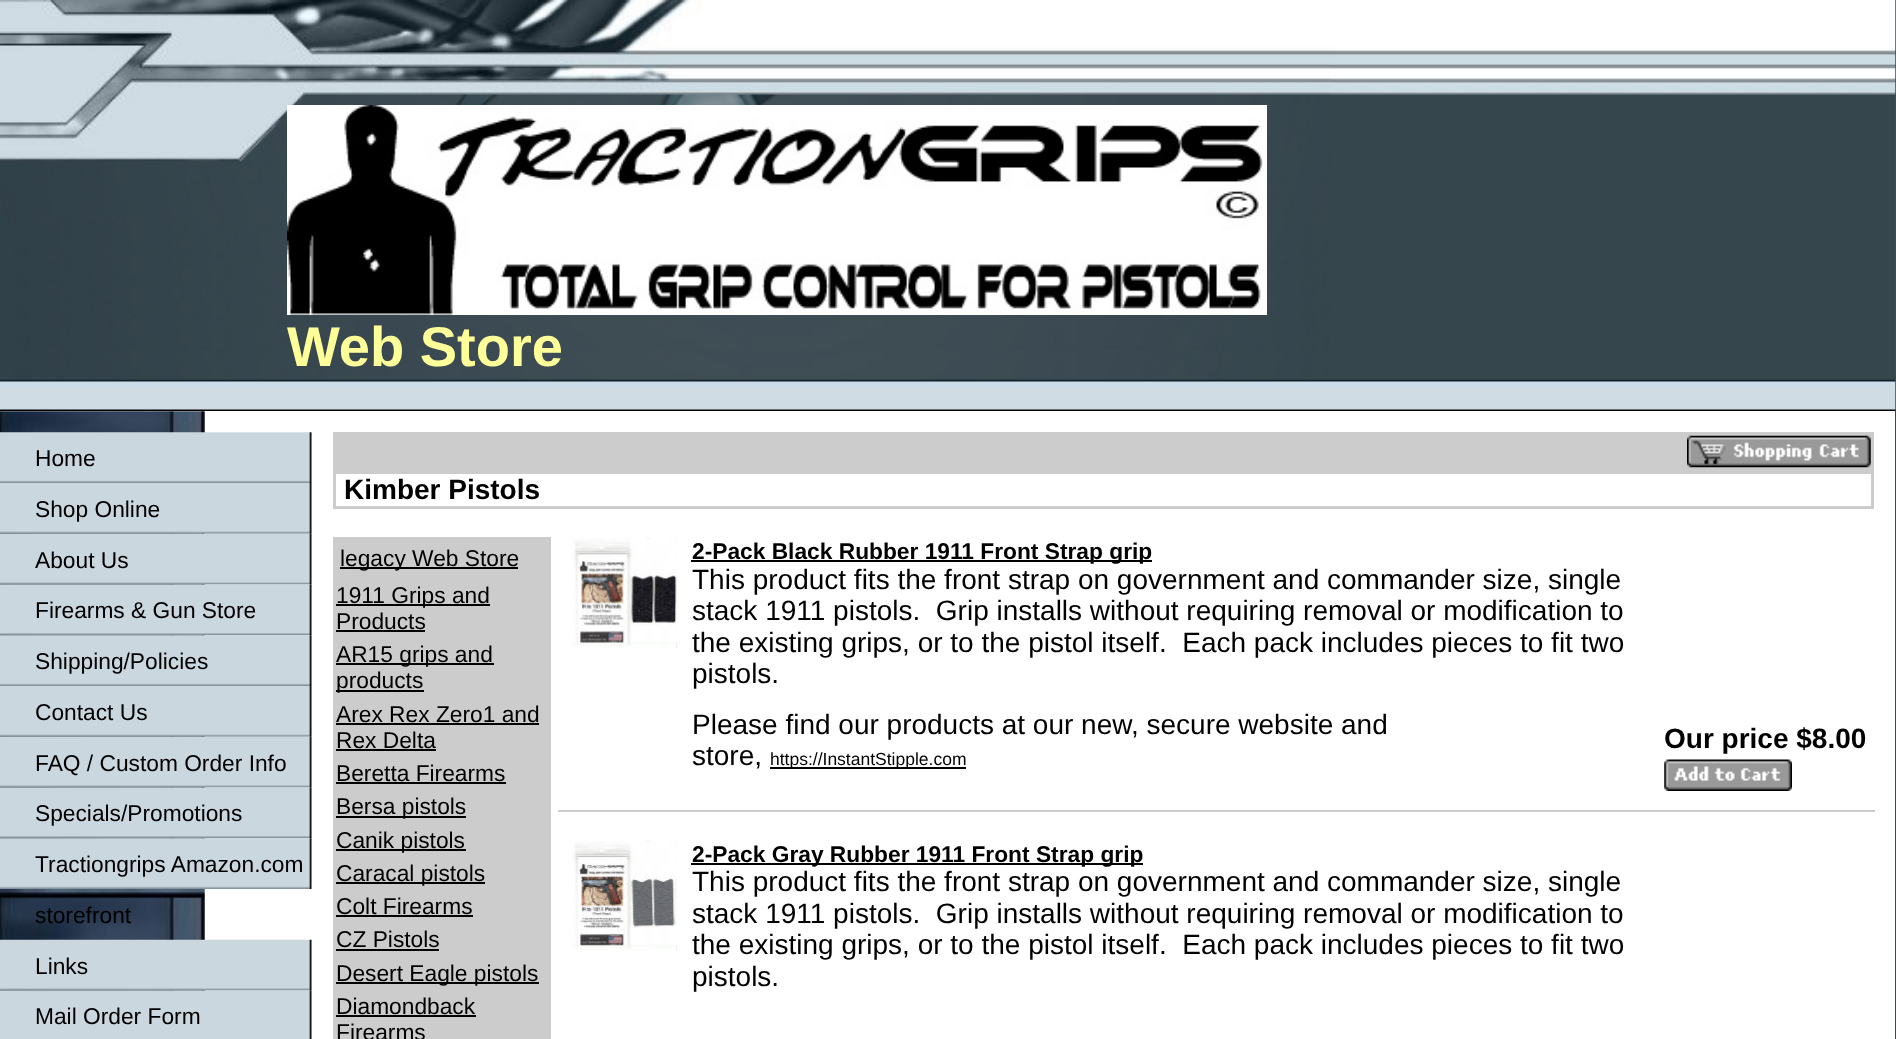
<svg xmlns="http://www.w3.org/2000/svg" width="1896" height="1039">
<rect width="100%" height="100%" fill="#3d4a52"/>
<rect y="96" width="1895" height="284" fill="#35464d"/>
<image x="1330" y="0" width="566" height="96" href="media/1.png"/>
<image x="0" y="0" width="1330" height="380" href="media/2.png"/>
<image x="287" y="105" width="980" height="210" href="media/3.png"/>
<text x="287" y="366" style="font-family:Liberation Sans;font-size:56px;font-weight:bold;fill:#ff9">Web Store</text>
<image x="0" y="379" width="1896" height="33" href="media/4.png"/>
<rect y="411" width="1895" height="628" fill="#fff"/>
<image x="0" y="411" width="205" height="580" href="media/5.png"/>
<image x="0" y="432" width="312" height="51" href="media/6.png"/>
<text x="35" y="466" style="font-family:Liberation Sans;font-size:22.75px;fill:#000">Home</text>
<image x="0" y="483" width="312" height="51" href="media/7.png"/>
<text x="35" y="517" style="font-family:Liberation Sans;font-size:22.75px;fill:#000">Shop Online</text>
<image x="0" y="533" width="312" height="52" href="media/8.png"/>
<text x="35" y="568" style="font-family:Liberation Sans;font-size:22.75px;fill:#000">About Us</text>
<image x="0" y="584" width="312" height="52" href="media/9.png"/>
<text x="35" y="618" style="font-family:Liberation Sans;font-size:22.75px;fill:#000">Firearms &amp; Gun Store</text>
<image x="0" y="635" width="312" height="51" href="media/10.png"/>
<text x="35" y="669" style="font-family:Liberation Sans;font-size:22.75px;fill:#000">Shipping/Policies</text>
<image x="0" y="686" width="312" height="51" href="media/11.png"/>
<text x="35" y="720" style="font-family:Liberation Sans;font-size:22.75px;fill:#000">Contact Us</text>
<image x="0" y="736" width="312" height="52" href="media/12.png"/>
<text x="35" y="771" style="font-family:Liberation Sans;font-size:22.75px;fill:#000">FAQ / Custom Order Info</text>
<image x="0" y="787" width="312" height="52" href="media/13.png"/>
<text x="35" y="821" style="font-family:Liberation Sans;font-size:22.75px;fill:#000">Specials/Promotions</text>
<image x="0" y="838" width="312" height="51" href="media/14.png"/>
<text x="35" y="872" style="font-family:Liberation Sans;font-size:22.75px;fill:#000">Tractiongrips Amazon.com</text>
<text x="35" y="923" style="font-family:Liberation Sans;font-size:22.75px;fill:#000">storefront</text>
<image x="0" y="939" width="312" height="52" href="media/15.png"/>
<text x="35" y="974" style="font-family:Liberation Sans;font-size:22.75px;fill:#000">Links</text>
<image x="0" y="990" width="312" height="49" href="media/16.png"/>
<text x="35" y="1024" style="font-family:Liberation Sans;font-size:22.75px;fill:#000">Mail Order Form</text>
<rect x="333" y="432" width="1541" height="77" fill="#ccc"/>
<image x="1687" y="435" width="184" height="33" href="media/17.png"/>
<rect x="336" y="474" width="1535" height="32" fill="#fff"/>
<text x="344" y="499" style="font-family:Liberation Sans;font-size:28px;font-weight:bold;fill:#000">Kimber Pistols</text>
<rect x="333" y="537" width="218" height="502" fill="#ccc"/>
<rect x="340" y="567" width="178" height="2" fill="#000"/>
<text x="340" y="566" style="font-family:Liberation Sans;font-size:22.75px;fill:#000">legacy Web Store</text>
<rect x="336" y="604" width="154" height="2" fill="#000"/>
<text x="336" y="603" style="font-family:Liberation Sans;font-size:22.75px;fill:#000">1911 Grips and</text>
<text x="336" y="629" style="font-family:Liberation Sans;font-size:22.75px;fill:#000">Products</text>
<rect x="336" y="630" width="89" height="2" fill="#000"/>
<rect x="336" y="663" width="158" height="2" fill="#000"/>
<text x="336" y="662" style="font-family:Liberation Sans;font-size:22.75px;fill:#000">AR15 grips and</text>
<rect x="336" y="690" width="88" height="2" fill="#000"/>
<text x="336" y="688" style="font-family:Liberation Sans;font-size:22.75px;fill:#000">products</text>
<text x="336" y="722" style="font-family:Liberation Sans;font-size:22.75px;fill:#000">Arex Rex Zero1 and</text>
<rect x="336" y="723" width="203" height="2" fill="#000"/>
<text x="336" y="748" style="font-family:Liberation Sans;font-size:22.75px;fill:#000">Rex Delta</text>
<rect x="336" y="749" width="100" height="2" fill="#000"/>
<text x="336" y="781" style="font-family:Liberation Sans;font-size:22.75px;fill:#000">Beretta Firearms</text>
<rect x="336" y="782" width="170" height="2" fill="#000"/>
<rect x="336" y="816" width="130" height="2" fill="#000"/>
<text x="336" y="814" style="font-family:Liberation Sans;font-size:22.75px;fill:#000">Bersa pistols</text>
<rect x="336" y="849" width="130" height="2" fill="#000"/>
<text x="336" y="848" style="font-family:Liberation Sans;font-size:22.75px;fill:#000">Canik pistols</text>
<rect x="336" y="882" width="149" height="2" fill="#000"/>
<text x="336" y="881" style="font-family:Liberation Sans;font-size:22.75px;fill:#000">Caracal pistols</text>
<text x="336" y="914" style="font-family:Liberation Sans;font-size:22.75px;fill:#000">Colt Firearms</text>
<rect x="336" y="915" width="137" height="2" fill="#000"/>
<text x="336" y="947" style="font-family:Liberation Sans;font-size:22.75px;fill:#000">CZ Pistols</text>
<rect x="336" y="949" width="103" height="2" fill="#000"/>
<rect x="336" y="982" width="203" height="2" fill="#000"/>
<text x="336" y="981" style="font-family:Liberation Sans;font-size:22.75px;fill:#000">Desert Eagle pistols</text>
<text x="336" y="1014" style="font-family:Liberation Sans;font-size:22.75px;fill:#000">Diamondback</text>
<rect x="336" y="1015" width="140" height="2" fill="#000"/>
<text x="336" y="1040" style="font-family:Liberation Sans;font-size:22.75px;fill:#000">Firearms</text>
<image x="572" y="537" width="106" height="111" href="media/18.png"/>
<rect x="691" y="560" width="461" height="2" fill="#000"/>
<text x="692" y="559" style="font-family:Liberation Sans;font-size:22.75px;font-weight:bold;fill:#000">2-Pack Black Rubber 1911 Front Strap grip</text>
<text x="692" y="589" style="font-family:Liberation Sans;font-size:28px;fill:#000">This product fits the front strap on government and commander size, single</text>
<text x="692" y="620" style="font-family:Liberation Sans;font-size:28px;fill:#000" xml:space="preserve">stack 1911 pistols.  Grip installs without requiring removal or modification to</text>
<text x="692" y="652" style="font-family:Liberation Sans;font-size:28px;fill:#000" xml:space="preserve">the existing grips, or to the pistol itself.  Each pack includes pieces to fit two</text>
<text x="692" y="683" style="font-family:Liberation Sans;font-size:28px;fill:#000">pistols.</text>
<text x="692" y="734" style="font-family:Liberation Sans;font-size:28px;fill:#000">Please find our products at our new, secure website and</text>
<text x="692" y="765" style="font-family:Liberation Sans;font-size:28px;fill:#000">store,</text>
<rect x="770" y="767" width="196" height="2" fill="#000"/>
<text x="770" y="765" style="font-family:Liberation Sans;font-size:17.5px;fill:#000">https://InstantStipple.com</text>
<text x="1664" y="748" style="font-family:Liberation Sans;font-size:28px;font-weight:bold;fill:#000">Our price $8.00</text>
<image x="1664" y="759" width="128" height="32" href="media/19.png"/>
<rect x="558" y="810" width="1317" height="2" fill="#ccc"/>
<image x="572" y="840" width="106" height="111" href="media/20.png"/>
<rect x="691" y="863" width="452" height="2" fill="#000"/>
<text x="692" y="862" style="font-family:Liberation Sans;font-size:22.75px;font-weight:bold;fill:#000">2-Pack Gray Rubber 1911 Front Strap grip</text>
<text x="692" y="891" style="font-family:Liberation Sans;font-size:28px;fill:#000">This product fits the front strap on government and commander size, single</text>
<text x="692" y="923" style="font-family:Liberation Sans;font-size:28px;fill:#000" xml:space="preserve">stack 1911 pistols.  Grip installs without requiring removal or modification to</text>
<text x="692" y="954" style="font-family:Liberation Sans;font-size:28px;fill:#000" xml:space="preserve">the existing grips, or to the pistol itself.  Each pack includes pieces to fit two</text>
<text x="692" y="986" style="font-family:Liberation Sans;font-size:28px;fill:#000">pistols.</text>
</svg>
